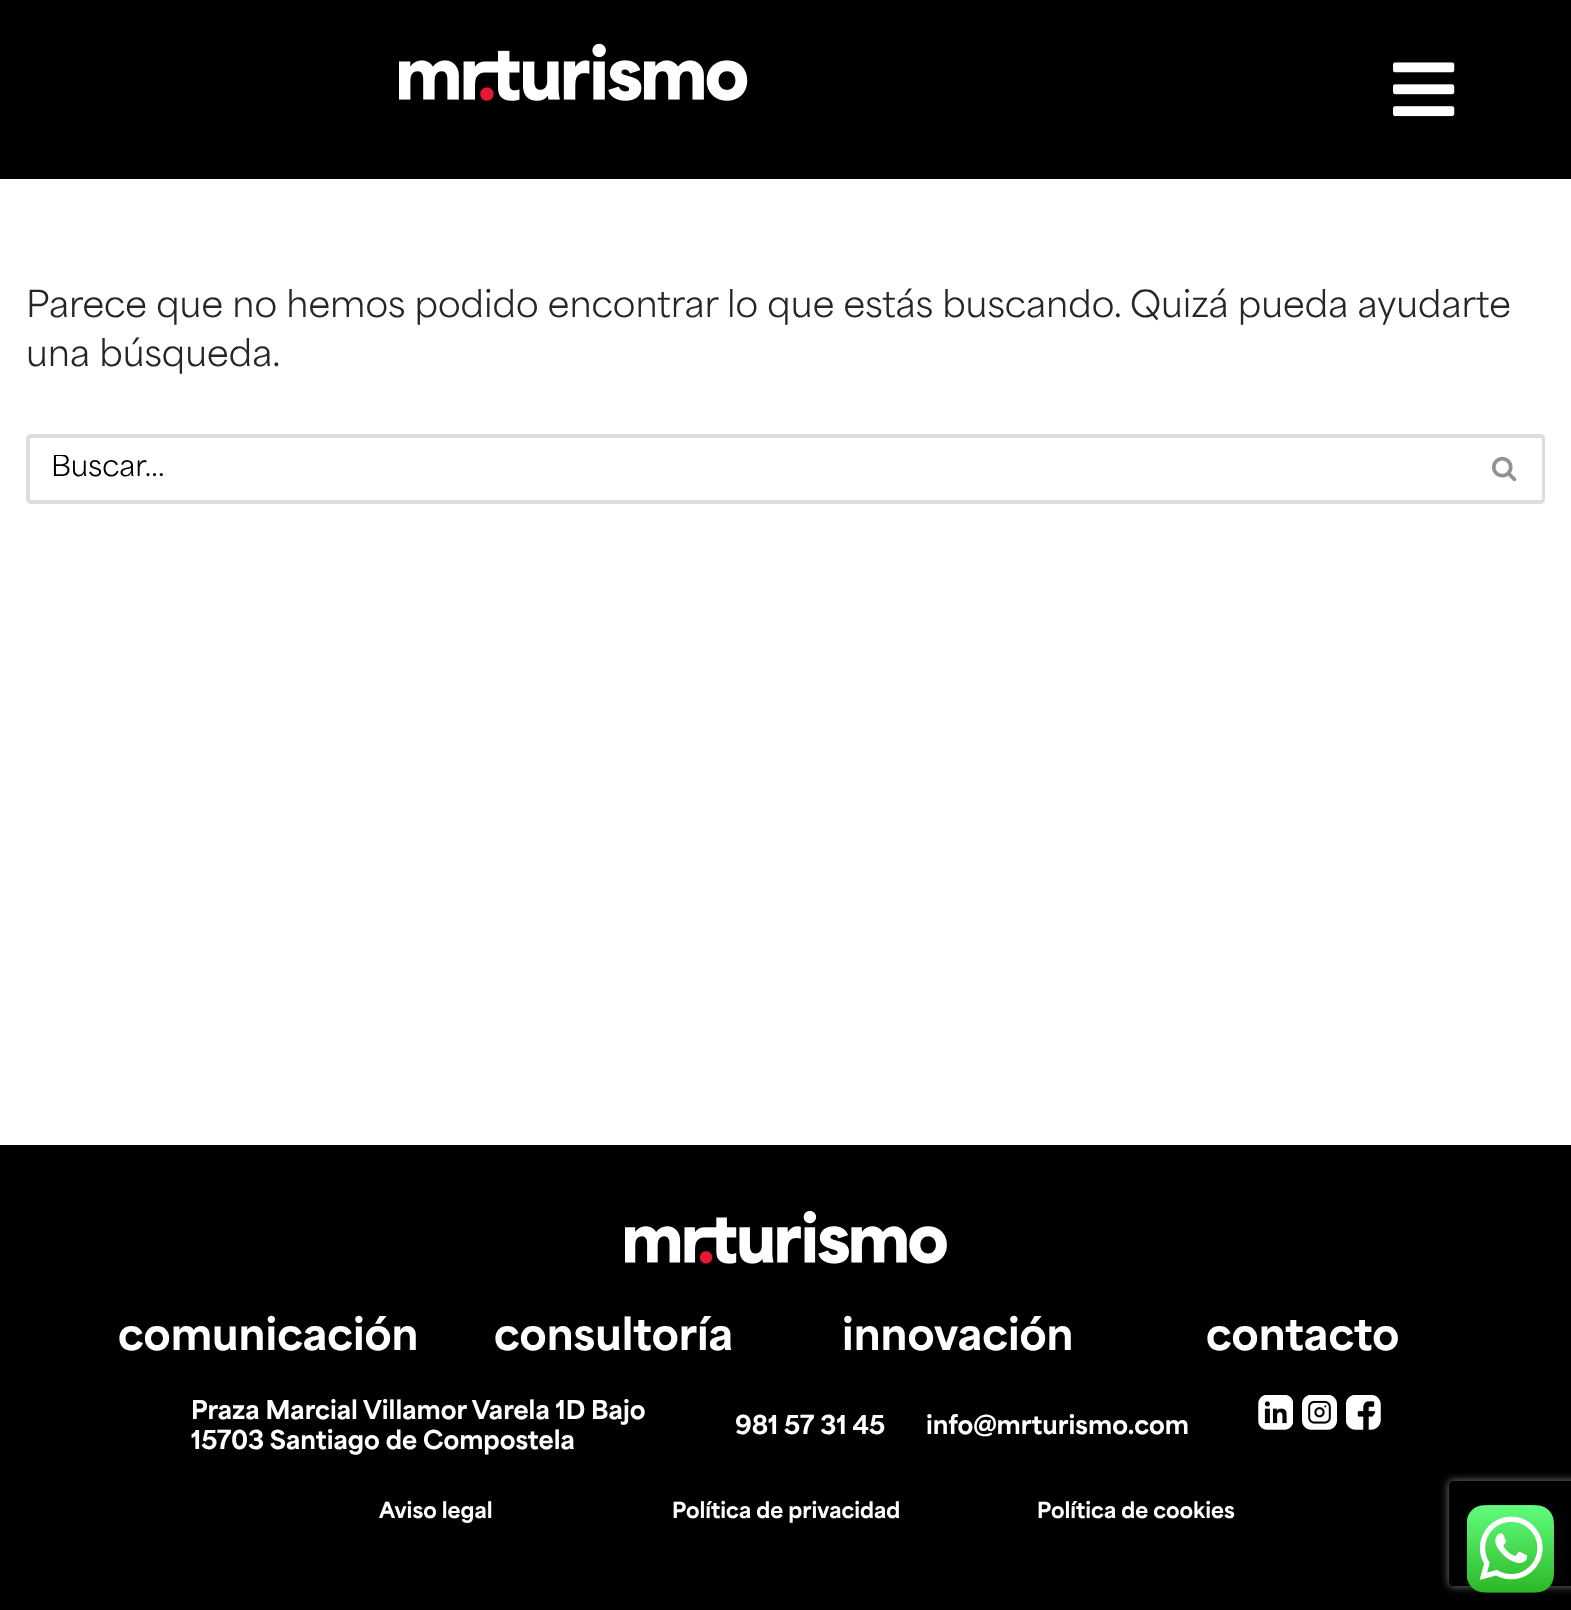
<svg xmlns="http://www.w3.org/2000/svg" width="1571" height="1610">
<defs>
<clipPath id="clip1"><rect x="51" y="455" width="1368" height="28"/></clipPath>
<clipPath id="clip2"><path d="M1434 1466h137v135h-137zm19 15h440c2 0 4 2 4 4v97c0 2-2 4-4 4h-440c-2 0-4-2-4-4v-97c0-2 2-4 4-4z" clip-rule="evenodd"/></clipPath>
</defs>
<rect width="100%" height="100%" fill="#fff"/>
<rect width="1571" height="179" fill="#000"/>
<image x="399" y="43" width="349" height="58" href="media/1.png"/>
<image x="1393" y="62" width="62" height="55" href="media/2.png"/>
<text x="26" y="317" style="font-family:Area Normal;font-size:35px;fill:#272626">Parece que no hemos podido encontrar lo que estás buscando. Quizá pueda ayudarte</text>
<text x="26" y="366" style="font-family:Area Normal;font-size:35px;fill:#272626">una búsqueda.</text>
<path d="M32 434h1434v70h-1434c-3 0-6-2-6-5v-60c0-3 3-5 6-5zm0 4h1434v62h-1434c-1 0-2 0-2-1v-60c0-1 1-1 2-1z" fill="#ddd" fill-rule="evenodd"/>
<g clip-path="url(#clip1)">
<text x="51" y="476" style="font-family:Area Normal;font-size:28px;fill:#000">Buscar...</text>
</g>
<path d="M1466 434h74c3 0 5 2 5 5v60c0 3-2 5-5 5h-74zm0 4h74c1 0 2 0 2 1v60c0 1-1 1-2 1h-74z" fill="#ddd" fill-rule="evenodd"/>
<image x="1492" y="456" width="25" height="25" href="media/3.png"/>
<rect y="1145" width="1571" height="465" fill="#000"/>
<image x="625" y="1210" width="322" height="54" href="media/4.png"/>
<text x="118" y="1350" style="font-family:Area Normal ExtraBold;font-size:42px;font-weight:800;fill:#fff">comunicación</text>
<text x="494" y="1350" style="font-family:Area Normal ExtraBold;font-size:42px;font-weight:800;fill:#fff">consultoría</text>
<text x="842" y="1350" style="font-family:Area Normal ExtraBold;font-size:42px;font-weight:800;fill:#fff">innovación</text>
<text x="1206" y="1350" style="font-family:Area Normal ExtraBold;font-size:42px;font-weight:800;fill:#fff">contacto</text>
<text x="191" y="1419" style="font-family:Area Normal ExtraBold;font-size:24.5px;font-weight:800;fill:#fff">Praza Marcial Villamor Varela 1D Bajo</text>
<text x="191" y="1449" style="font-family:Area Normal ExtraBold;font-size:24.5px;font-weight:800;fill:#fff">15703 Santiago de Compostela</text>
<text x="735" y="1434" style="font-family:Area Normal ExtraBold;font-size:24.5px;font-weight:800;fill:#fff">981 57 31 45</text>
<text x="926" y="1434" style="font-family:Area Normal ExtraBold;font-size:24.5px;font-weight:800;fill:#fff">info@mrturismo.com</text>
<image x="1258" y="1395" width="35" height="35" href="media/5.png"/>
<image x="1302" y="1395" width="35" height="35" href="media/6.png"/>
<image x="1346" y="1395" width="35" height="35" href="media/7.png"/>
<text x="379" y="1518" style="font-family:Area Normal ExtraBold;font-size:21px;font-weight:800;fill:#fff">Aviso legal</text>
<text x="672" y="1518" style="font-family:Area Normal ExtraBold;font-size:21px;font-weight:800;fill:#fff">Política de privacidad</text>
<text x="1037" y="1518" style="font-family:Area Normal ExtraBold;font-size:21px;font-weight:800;fill:#fff">Política de cookies</text>
<g clip-path="url(#clip2)">
<rect x="1449" y="1481" width="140" height="105" rx="4" fill="#808080" filter="blur(4.5px)"/>
</g>
<image x="1467" y="1505" width="87" height="88" href="media/8.png"/>
</svg>
